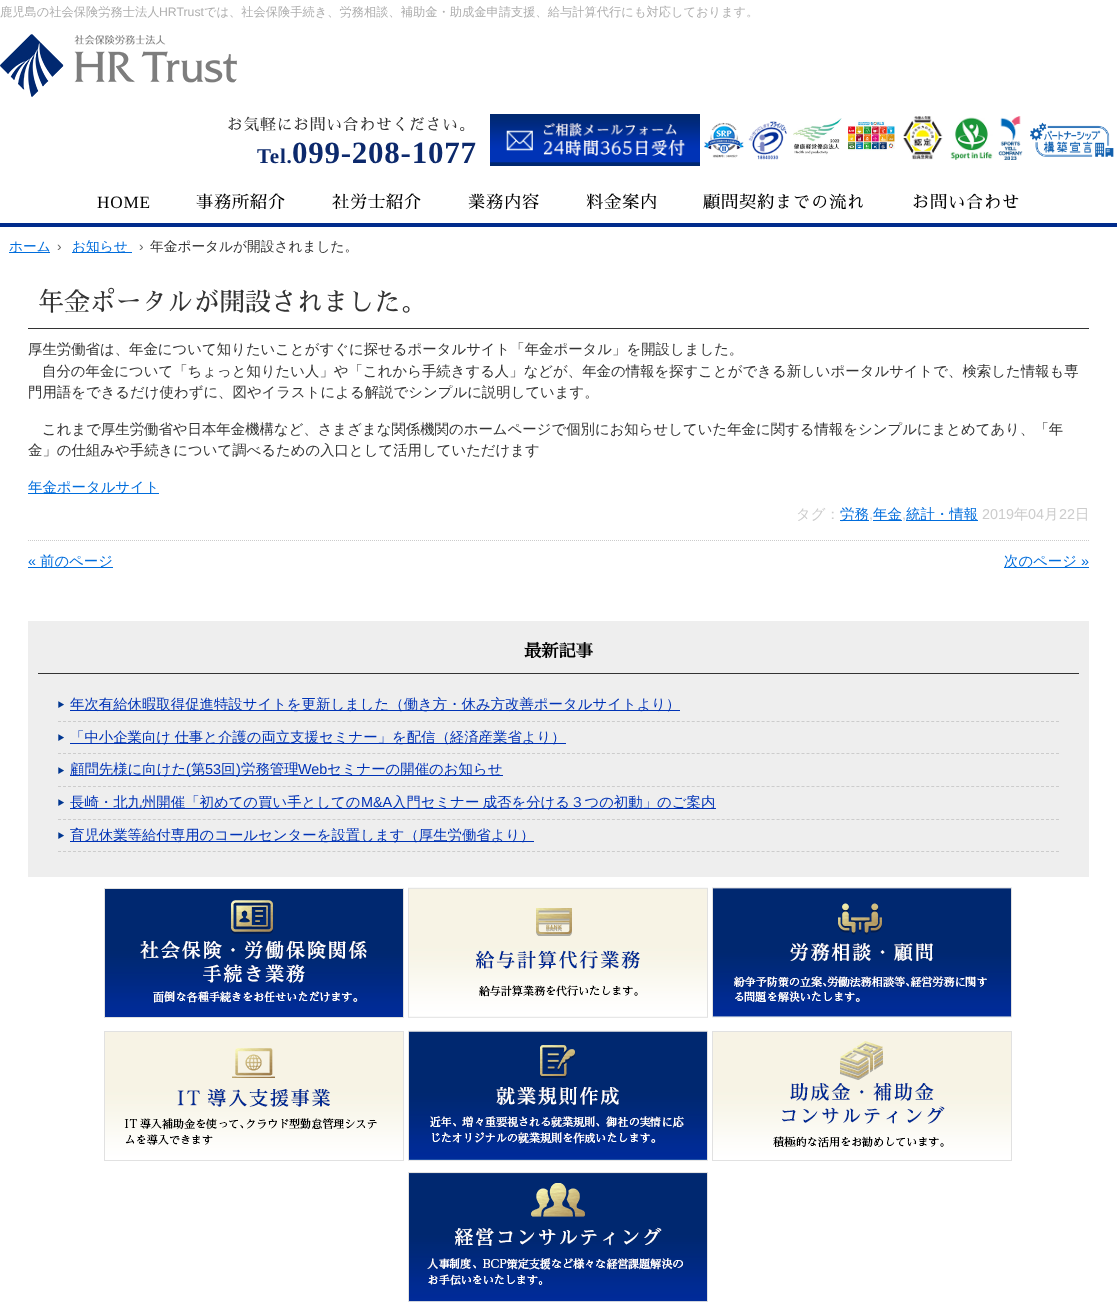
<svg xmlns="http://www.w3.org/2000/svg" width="1117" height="1305">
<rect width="100%" height="100%" fill="#fff"/>
<text x="0" y="16" style="font-family:WenQuanYi Zen Hei;font-size:12.25px;font-weight:500;fill:#afafaf">鹿児島の社会保険労務士法人</text>
<text x="159" y="16" style="font-family:Liberation Sans;font-size:12.25px;fill:#afafaf">HRTrust</text>
<text x="204" y="16" style="font-family:WenQuanYi Zen Hei;font-size:12.25px;font-weight:500;fill:#afafaf">では、社会保険手続き、労務相談、補助金・助成金申請支援、給与計算代行にも対応しております。</text>
<image x="0" y="34" width="237" height="63" href="media/1.png"/>
<text x="227" y="130" style="font-family:Sawarabi Mincho;font-size:15.8px;letter-spacing:0.75px;fill:#333">お気軽にお問い合わせください。</text>
<text x="257" y="163" style="font-family:Liberation Serif;font-size:21px;font-weight:bold;letter-spacing:0.75px;fill:#0c296c">Tel.</text>
<text x="292" y="163" style="font-family:Liberation Serif;font-size:31px;font-weight:bold;letter-spacing:0.75px;fill:#0c296c">099-208-1077</text>
<image x="490" y="114" width="210" height="52" href="media/2.png"/>
<image x="704" y="122" width="40" height="36" href="media/3.png"/>
<image x="748" y="121" width="39" height="39" href="media/4.png"/>
<image x="793" y="118" width="49" height="37" href="media/5.png"/>
<image x="848" y="120" width="47" height="31" href="media/6.png"/>
<image x="903" y="116" width="40" height="44" href="media/7.png"/>
<image x="950" y="117" width="43" height="43" href="media/8.png"/>
<image x="998" y="116" width="25" height="44" href="media/9.png"/>
<image x="1030" y="122" width="84" height="35" href="media/10.png"/>
<rect y="223" width="1117" height="4" fill="#002b8c"/>
<text x="97" y="208" style="font-family:Liberation Serif;font-size:17.25px;letter-spacing:0.75px;fill:#000">HOME</text>
<text x="196" y="208" style="font-family:Sawarabi Mincho;font-size:17.25px;letter-spacing:0.75px;fill:#000">事務所紹介</text>
<text x="332" y="208" style="font-family:Sawarabi Mincho;font-size:17.25px;letter-spacing:0.75px;fill:#000">社労士紹介</text>
<text x="468" y="208" style="font-family:Sawarabi Mincho;font-size:17.25px;letter-spacing:0.75px;fill:#000">業務内容</text>
<text x="586" y="208" style="font-family:Sawarabi Mincho;font-size:17.25px;letter-spacing:0.75px;fill:#000">料金案内</text>
<text x="703" y="208" style="font-family:Sawarabi Mincho;font-size:17.25px;letter-spacing:0.75px;fill:#000">顧問契約までの流れ</text>
<text x="912" y="208" style="font-family:Sawarabi Mincho;font-size:17.25px;letter-spacing:0.75px;fill:#000">お問い合わせ</text>
<rect x="9" y="252" width="41" height="1" fill="#006ddc"/>
<text x="9" y="251" style="font-family:WenQuanYi Zen Hei;font-size:13.7px;font-weight:500;fill:#006ddc">ホーム</text>
<text x="57" y="251" style="font-family:Liberation Sans;font-size:13.7px;fill:#666">›</text>
<rect x="72" y="252" width="60" height="1" fill="#006ddc"/>
<text x="72" y="251" style="font-family:WenQuanYi Zen Hei;font-size:13.7px;font-weight:500;fill:#006ddc">お知らせ</text>
<text x="139" y="251" style="font-family:Liberation Sans;font-size:13.7px;fill:#666">›</text>
<text x="150" y="251" style="font-family:WenQuanYi Zen Hei;font-size:13.7px;font-weight:500;fill:#333">年金ポータルが開設されました。</text>
<rect x="28" y="328" width="1061" height="1" fill="#333"/>
<text x="38" y="311" style="font-family:Sawarabi Mincho;font-size:25.9px;fill:#333">年金ポータルが開設されました。</text>
<text x="28" y="354" style="font-family:WenQuanYi Zen Hei;font-size:14.4px;font-weight:500;fill:#333">厚生労働省は、年金について知りたいことがすぐに探せるポータルサイト「年金ポータル」を開設しました。</text>
<text x="42" y="376" style="font-family:WenQuanYi Zen Hei;font-size:14.4px;font-weight:500;fill:#333">自分の年金について「ちょっと知りたい人」や「これから手続きする人」などが、年金の情報を探すことができる新しいポータルサイトで、検索した情報も専</text>
<text x="28" y="397" style="font-family:WenQuanYi Zen Hei;font-size:14.4px;font-weight:500;fill:#333">門用語をできるだけ使わずに、図やイラストによる解説でシンプルに説明しています。</text>
<text x="42" y="434" style="font-family:WenQuanYi Zen Hei;font-size:14.4px;font-weight:500;fill:#333">これまで厚生労働省や日本年金機構など、さまざまな関係機関のホームページで個別にお知らせしていた年金に関する情報をシンプルにまとめてあり、「年</text>
<text x="28" y="455" style="font-family:WenQuanYi Zen Hei;font-size:14.4px;font-weight:500;fill:#333">金」の仕組みや手続きについて調べるための入口として活用していただけます</text>
<rect x="28" y="493" width="131" height="1" fill="#006ddc"/>
<text x="28" y="492" style="font-family:WenQuanYi Zen Hei;font-size:14.4px;font-weight:500;fill:#006ddc">年金ポータルサイト</text>
<path d="M28 540.5h1061" fill="none" stroke="#ccc" stroke-dasharray="1 1"/>
<text x="796" y="519" style="font-family:WenQuanYi Zen Hei;font-size:14.4px;font-weight:500;fill:#ccc">タグ：</text>
<rect x="840" y="520" width="29" height="1" fill="#006ddc"/>
<text x="840" y="519" style="font-family:WenQuanYi Zen Hei;font-size:14.4px;font-weight:500;fill:#006ddc">労務</text>
<text x="869" y="519" style="font-family:Liberation Sans;font-size:14.4px;fill:#ccc">,</text>
<rect x="873" y="520" width="29" height="1" fill="#006ddc"/>
<text x="873" y="519" style="font-family:WenQuanYi Zen Hei;font-size:14.4px;font-weight:500;fill:#006ddc">年金</text>
<text x="902" y="519" style="font-family:Liberation Sans;font-size:14.4px;fill:#ccc">,</text>
<rect x="906" y="520" width="72" height="1" fill="#006ddc"/>
<text x="906" y="519" style="font-family:WenQuanYi Zen Hei;font-size:14.4px;font-weight:500;fill:#006ddc">統計・情報</text>
<text x="982" y="519" style="font-family:Liberation Sans;font-size:14.4px;fill:#ccc">2019</text>
<text x="1014" y="519" style="font-family:WenQuanYi Zen Hei;font-size:14.4px;font-weight:500;fill:#ccc">年</text>
<text x="1028" y="519" style="font-family:Liberation Sans;font-size:14.4px;fill:#ccc">04</text>
<text x="1044" y="519" style="font-family:WenQuanYi Zen Hei;font-size:14.4px;font-weight:500;fill:#ccc">月</text>
<text x="1059" y="519" style="font-family:Liberation Sans;font-size:14.4px;fill:#ccc">22</text>
<text x="1075" y="519" style="font-family:WenQuanYi Zen Hei;font-size:14.4px;font-weight:500;fill:#ccc">日</text>
<text x="28" y="566" style="font-family:Liberation Sans;font-size:14.4px;fill:#006ddc">«</text>
<rect x="28" y="567" width="85" height="1" fill="#006ddc"/>
<text x="40" y="566" style="font-family:WenQuanYi Zen Hei;font-size:14.4px;font-weight:500;fill:#006ddc">前のページ</text>
<rect x="1004" y="567" width="85" height="1" fill="#006ddc"/>
<text x="1004" y="566" style="font-family:WenQuanYi Zen Hei;font-size:14.4px;font-weight:500;fill:#006ddc">次のページ</text>
<text x="1081" y="566" style="font-family:Liberation Sans;font-size:14.4px;fill:#006ddc">»</text>
<rect x="28" y="621" width="1061" height="256" fill="#eee"/>
<rect x="38" y="673" width="1041" height="1" fill="#333"/>
<text x="524" y="657" style="font-family:Sawarabi Mincho;font-size:17.25px;font-weight:bold;fill:#000">最新記事</text>
<image x="58" y="701" width="6" height="7" href="media/11.png"/>
<path d="M58 721.5h1001" fill="none" stroke="#ccc" stroke-dasharray="3 1.99"/>
<rect x="70" y="710" width="610" height="1" fill="#0033b6"/>
<text x="70" y="709" style="font-family:WenQuanYi Zen Hei;font-size:14.4px;font-weight:500;fill:#0033b6">年次有給休暇取得促進特設サイトを更新しました（働き方・休み方改善ポータルサイトより）</text>
<image x="58" y="734" width="6" height="7" href="media/11.png"/>
<path d="M58 753.5h1001" fill="none" stroke="#ccc" stroke-dasharray="3 1.99"/>
<rect x="70" y="743" width="496" height="1" fill="#0033b6"/>
<text x="70" y="742" word-spacing="-1" style="font-family:WenQuanYi Zen Hei;font-size:14.4px;font-weight:500;fill:#0033b6">「中小企業向け 仕事と介護の両立支援セミナー」を配信（経済産業省より）</text>
<image x="58" y="767" width="6" height="7" href="media/11.png"/>
<path d="M58 786.5h1001" fill="none" stroke="#ccc" stroke-dasharray="3 1.99"/>
<rect x="70" y="775" width="433" height="1" fill="#0033b6"/>
<text x="70" y="774" style="font-family:WenQuanYi Zen Hei;font-size:14.4px;font-weight:500;fill:#0033b6">顧問先様に向けた</text>
<text x="186" y="774" style="font-family:Liberation Sans;font-size:14.4px;fill:#0033b6">(</text>
<text x="191" y="774" style="font-family:WenQuanYi Zen Hei;font-size:14.4px;font-weight:500;fill:#0033b6">第</text>
<text x="205" y="774" style="font-family:Liberation Sans;font-size:14.4px;fill:#0033b6">53</text>
<text x="221" y="774" style="font-family:WenQuanYi Zen Hei;font-size:14.4px;font-weight:500;fill:#0033b6">回</text>
<text x="236" y="774" style="font-family:Liberation Sans;font-size:14.4px;fill:#0033b6">)</text>
<text x="241" y="774" style="font-family:WenQuanYi Zen Hei;font-size:14.4px;font-weight:500;fill:#0033b6">労務管理</text>
<text x="298" y="774" style="font-family:Liberation Sans;font-size:14.4px;fill:#0033b6">Web</text>
<text x="327" y="774" style="font-family:WenQuanYi Zen Hei;font-size:14.4px;font-weight:500;fill:#0033b6">セミナーの開催のお知らせ</text>
<image x="58" y="799" width="6" height="7" href="media/11.png"/>
<path d="M58 819.5h1001" fill="none" stroke="#ccc" stroke-dasharray="3 1.99"/>
<rect x="70" y="808" width="646" height="1" fill="#0033b6"/>
<text x="70" y="807" style="font-family:WenQuanYi Zen Hei;font-size:14.4px;font-weight:500;fill:#0033b6">長崎・北九州開催「初めての買い手としての</text>
<text x="361" y="807" style="font-family:Liberation Sans;font-size:14.4px;fill:#0033b6">M&amp;A</text>
<text x="392" y="807" word-spacing="-1" style="font-family:WenQuanYi Zen Hei;font-size:14.4px;font-weight:500;fill:#0033b6">入門セミナー 成否を分ける３つの初動」のご案内</text>
<image x="58" y="832" width="6" height="7" href="media/11.png"/>
<path d="M58 851.5h1001" fill="none" stroke="#ccc" stroke-dasharray="3 1.99"/>
<rect x="70" y="841" width="464" height="1" fill="#0033b6"/>
<text x="70" y="840" style="font-family:WenQuanYi Zen Hei;font-size:14.4px;font-weight:500;fill:#0033b6">育児休業等給付専用のコールセンターを設置します（厚生労働省より）</text>
<image x="104" y="888" width="300" height="130" href="media/12.png"/>
<image x="408" y="887" width="300" height="131" href="media/13.png"/>
<image x="712" y="887" width="300" height="131" href="media/14.png"/>
<image x="104" y="1031" width="300" height="130" href="media/15.png"/>
<image x="408" y="1030" width="300" height="131" href="media/16.png"/>
<image x="712" y="1031" width="300" height="130" href="media/17.png"/>
<image x="408" y="1172" width="300" height="130" href="media/18.png"/>
</svg>
